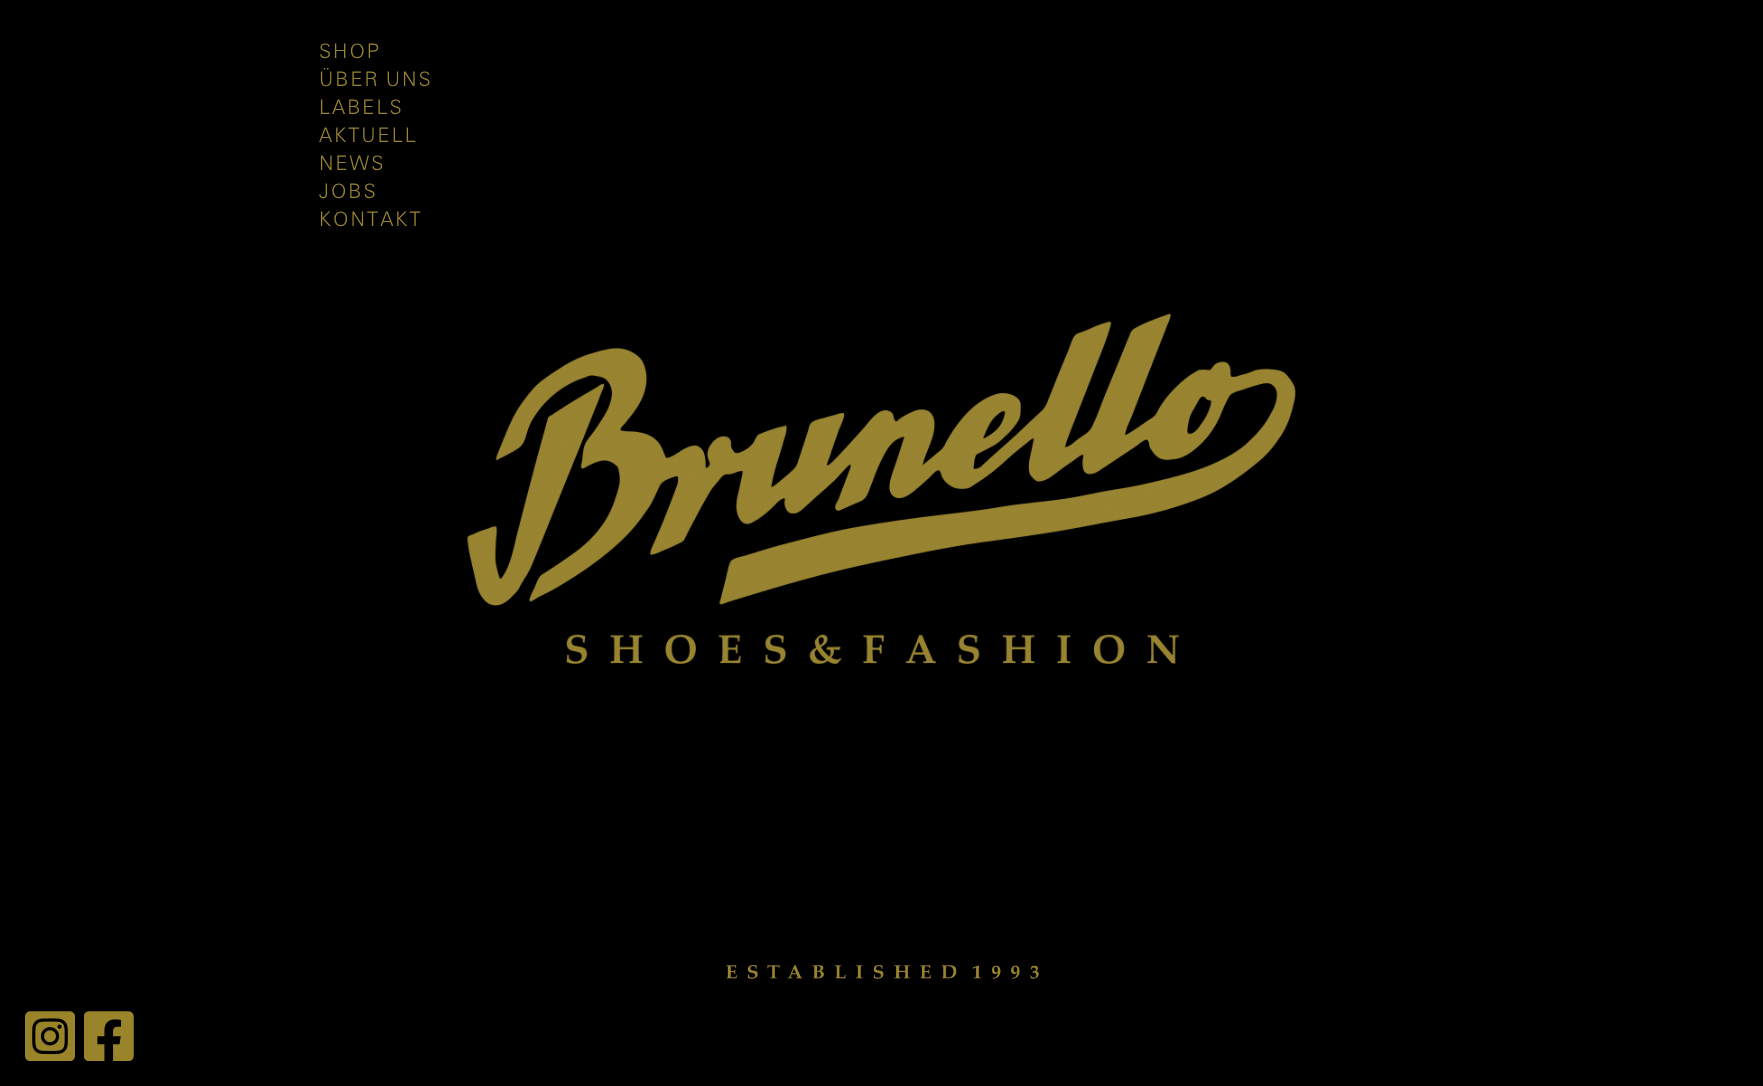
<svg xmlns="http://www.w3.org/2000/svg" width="1763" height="1086">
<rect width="100%" height="100%" fill="#000"/>
<text x="319" y="58" style="font-family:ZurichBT;font-size:20px;letter-spacing:2px;fill:#988430">SHOP</text>
<text x="319" y="86" style="font-family:ZurichBT;font-size:20px;letter-spacing:2px;fill:#988430">ÜBER UNS</text>
<text x="319" y="114" style="font-family:ZurichBT;font-size:20px;letter-spacing:2px;fill:#988430">LABELS</text>
<text x="319" y="142" style="font-family:ZurichBT;font-size:20px;letter-spacing:2px;fill:#988430">AKTUELL</text>
<text x="319" y="170" style="font-family:ZurichBT;font-size:20px;letter-spacing:2px;fill:#988430">NEWS</text>
<text x="319" y="198" style="font-family:ZurichBT;font-size:20px;letter-spacing:2px;fill:#988430">JOBS</text>
<text x="319" y="226" style="font-family:ZurichBT;font-size:20px;letter-spacing:2px;fill:#988430">KONTAKT</text>
<image x="467" y="313" width="829" height="351" href="media/1.png"/>
<image x="25" y="1011" width="50" height="50" href="media/2.png"/>
<image x="84" y="1011" width="50" height="50" href="media/3.png"/>
<image x="726" y="965" width="313" height="14" href="media/4.png"/>
</svg>
